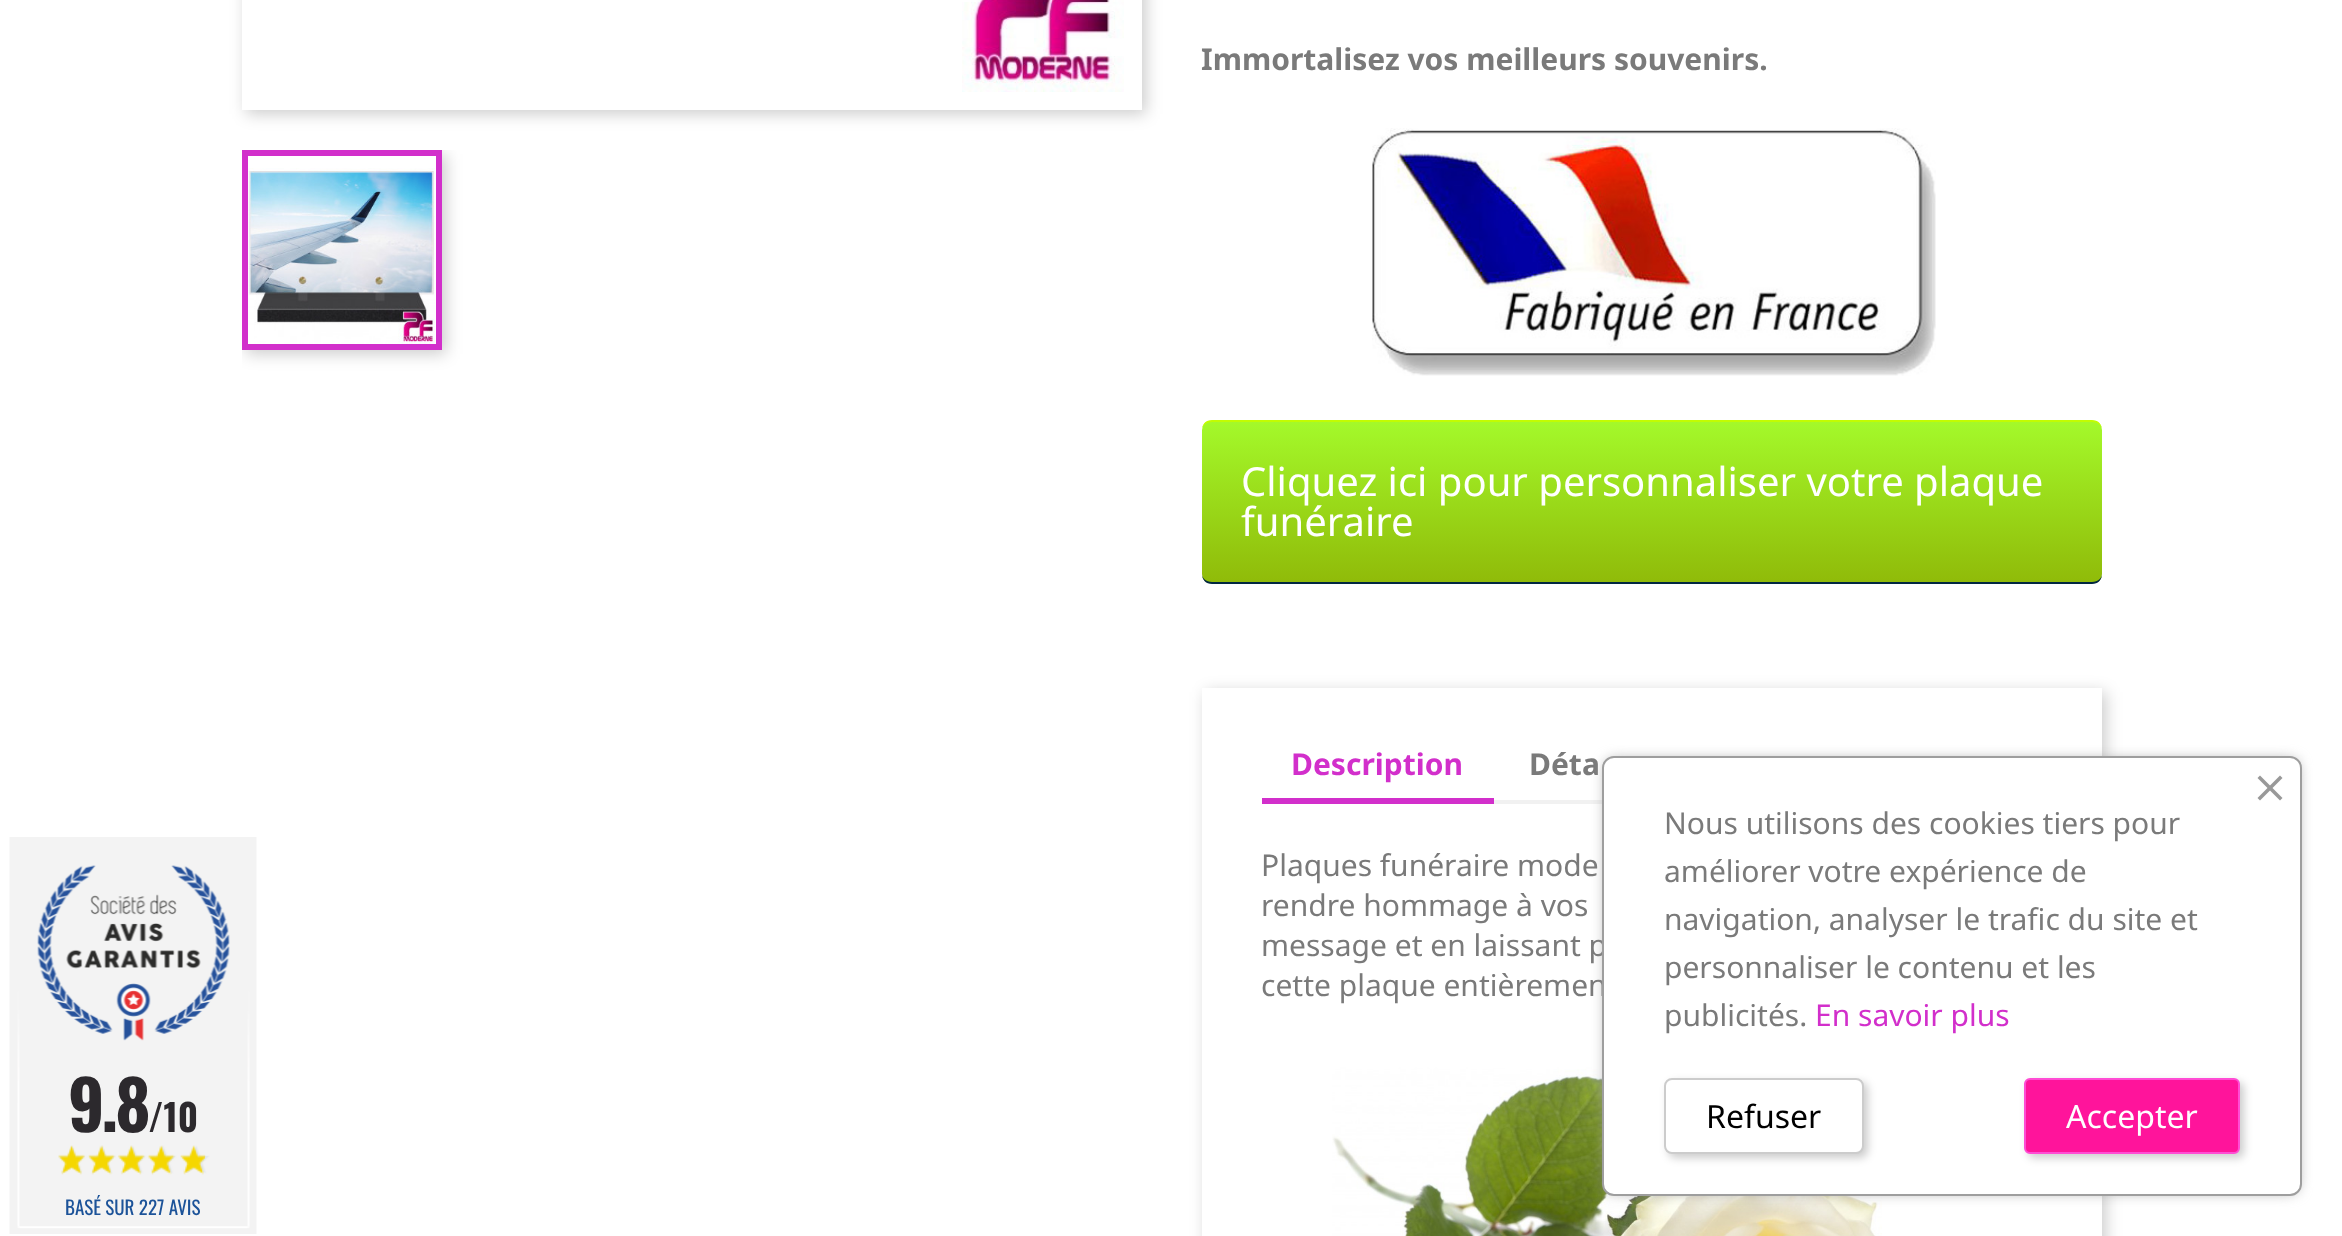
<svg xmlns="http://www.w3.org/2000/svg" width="2342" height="1236">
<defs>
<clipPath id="clip1"><path d="M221 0h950v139h-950zm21-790h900v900h-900z" clip-rule="evenodd"/></clipPath>
<clipPath id="clip2"><rect x="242" y="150" width="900" height="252"/></clipPath>
<clipPath id="clip3"><path d="M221 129h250v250h-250zm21 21h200v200h-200z" clip-rule="evenodd"/></clipPath>
<clipPath id="clip4"><rect x="1202" y="420" width="900" height="164" rx="10"/></clipPath>
<linearGradient id="g1" gradientUnits="userSpaceOnUse" x1="1652" y1="422" x2="1652" y2="582"><stop offset="0" stop-color="#a4f92a"/><stop offset="1" stop-color="#90bb09"/></linearGradient>
<clipPath id="clip5"><path d="M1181 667h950v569h-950zm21 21h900v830h-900z" clip-rule="evenodd"/></clipPath>
</defs>
<rect width="100%" height="100%" fill="#fff"/>
<g clip-path="url(#clip1)">
<rect x="246" y="-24" width="900" height="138" fill="#00000033" filter="blur(8px)"/>
</g>
<image x="962" y="0" width="162" height="92" href="media/1.png"/>
<g clip-path="url(#clip2)">
<g clip-path="url(#clip3)">
<rect x="246" y="154" width="200" height="200" fill="#00000033" filter="blur(8px)"/>
</g>
</g>
<rect x="245" y="153" width="194" height="194" fill="none" stroke="#d22fcb" stroke-width="6"/>
<image x="248" y="168" width="187" height="176" href="media/2.png"/>
<text x="1201" y="70" style="font-family:Noto Sans;font-size:30px;font-weight:bold;fill:#7a7a7a">Immortalisez vos meilleurs souvenirs.</text>
<image x="1372" y="128" width="564" height="248" href="media/3.png"/>
<g clip-path="url(#clip4)">
<rect x="1202" y="422" width="900" height="160" fill="url(#g1)"/>
</g>
<path d="M1212 420c-6 0-10 4-10 10c0-4 4-8 10-8h880c6 0 10 4 10 8c0-6-4-10-10-10z" fill="#c2fc02"/>
<path d="M2092 584c6 0 10-4 10-10c0 4-4 8-10 8h-880c-6 0-10-4-10-8c0 6 4 10 10 10z" fill="#012740"/>
<text x="1241" y="496" style="font-family:Noto Sans;font-size:40px;fill:#fff">Cliquez ici pour personnaliser votre plaque</text>
<text x="1241" y="536" style="font-family:Noto Sans;font-size:40px;fill:#fff">funéraire</text>
<g clip-path="url(#clip5)">
<rect x="1206" y="692" width="900" height="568" fill="#00000033" filter="blur(8px)"/>
</g>
<rect x="1494" y="800" width="108" height="4" fill="#f1f1f1"/>
<rect x="1262" y="798" width="232" height="6" fill="#d22fcb"/>
<text x="1291" y="775" style="font-family:Noto Sans;font-size:30px;font-weight:bold;fill:#d22fcb">Description</text>
<text x="1529" y="775" style="font-family:Noto Sans;font-size:30px;font-weight:bold;fill:#7a7a7a">Déta</text>
<text x="1261" y="876" style="font-family:Noto Sans;font-size:30px;fill:#7a7a7a">Plaques funéraire mode</text>
<text x="1261" y="916" style="font-family:Noto Sans;font-size:30px;fill:#7a7a7a">rendre hommage à vos</text>
<text x="1261" y="956" style="font-family:Noto Sans;font-size:30px;fill:#7a7a7a">message et en laissant p</text>
<text x="1261" y="996" style="font-family:Noto Sans;font-size:30px;fill:#7a7a7a">cette plaque entièremen</text>
<image x="1332" y="1067" width="550" height="169" href="media/4.png"/>
<image x="9" y="837" width="248" height="397" href="media/5.png"/>
<text x="68" y="1132" style="font-family:Oswald;font-size:68px;font-weight:bold;letter-spacing:-3px;fill:#2c292d">9.8</text>
<text x="148" y="1132" style="font-family:Oswald;font-size:37px;font-weight:bold;fill:#2c292d">/10</text>
<image x="58" y="1145" width="148" height="30" href="media/6.png"/>
<text x="65" y="1215" style="font-family:Oswald;font-size:19px;fill:#1c5399">BASÉ SUR 227 AVIS</text>
<rect x="1606" y="760" width="692" height="432" rx="8" fill="#9e9e9e" filter="blur(7px)"/>
<rect x="1603" y="757" width="698" height="438" rx="11" fill="#fff" stroke="#9e9e9e" stroke-width="2"/>
<path d="M2257.5 798l22.5-22.5l2.5 2.5l-22.5 22.5z" fill="#999"/>
<path d="M2260 775.5l22.5 22.5l-2.5 2.5l-22.5-22.5z" fill="#999"/>
<text x="1664" y="834" style="font-family:Noto Sans;font-size:30px;fill:#7a7a7a">Nous utilisons des cookies tiers pour</text>
<text x="1664" y="882" style="font-family:Noto Sans;font-size:30px;fill:#7a7a7a">améliorer votre expérience de</text>
<text x="1664" y="930" style="font-family:Noto Sans;font-size:30px;fill:#7a7a7a">navigation, analyser le trafic du site et</text>
<text x="1664" y="978" style="font-family:Noto Sans;font-size:30px;fill:#7a7a7a">personnaliser le contenu et les</text>
<text x="1664" y="1026" style="font-family:Noto Sans;font-size:30px;fill:#7a7a7a">publicités.</text>
<text x="1815" y="1026" style="font-family:Noto Sans;font-size:30px;fill:#d22fcb">En savoir plus</text>
<rect x="1668" y="1082" width="200" height="76" rx="8" fill="#00000033" filter="blur(4px)"/>
<rect x="1665" y="1079" width="198" height="74" rx="7" fill="#fff" stroke="#ccc" stroke-width="2"/>
<text x="1706" y="1128" style="font-family:Noto Sans;font-size:32px;fill:#000">Refuser</text>
<rect x="2028" y="1082" width="216" height="76" rx="6" fill="#00000033" filter="blur(4px)"/>
<rect x="2025" y="1079" width="214" height="74" rx="5" fill="#ff149b" stroke="#ff4cd4" stroke-width="2"/>
<text x="2066" y="1128" style="font-family:Noto Sans;font-size:32px;fill:#fff">Accepter</text>
</svg>
